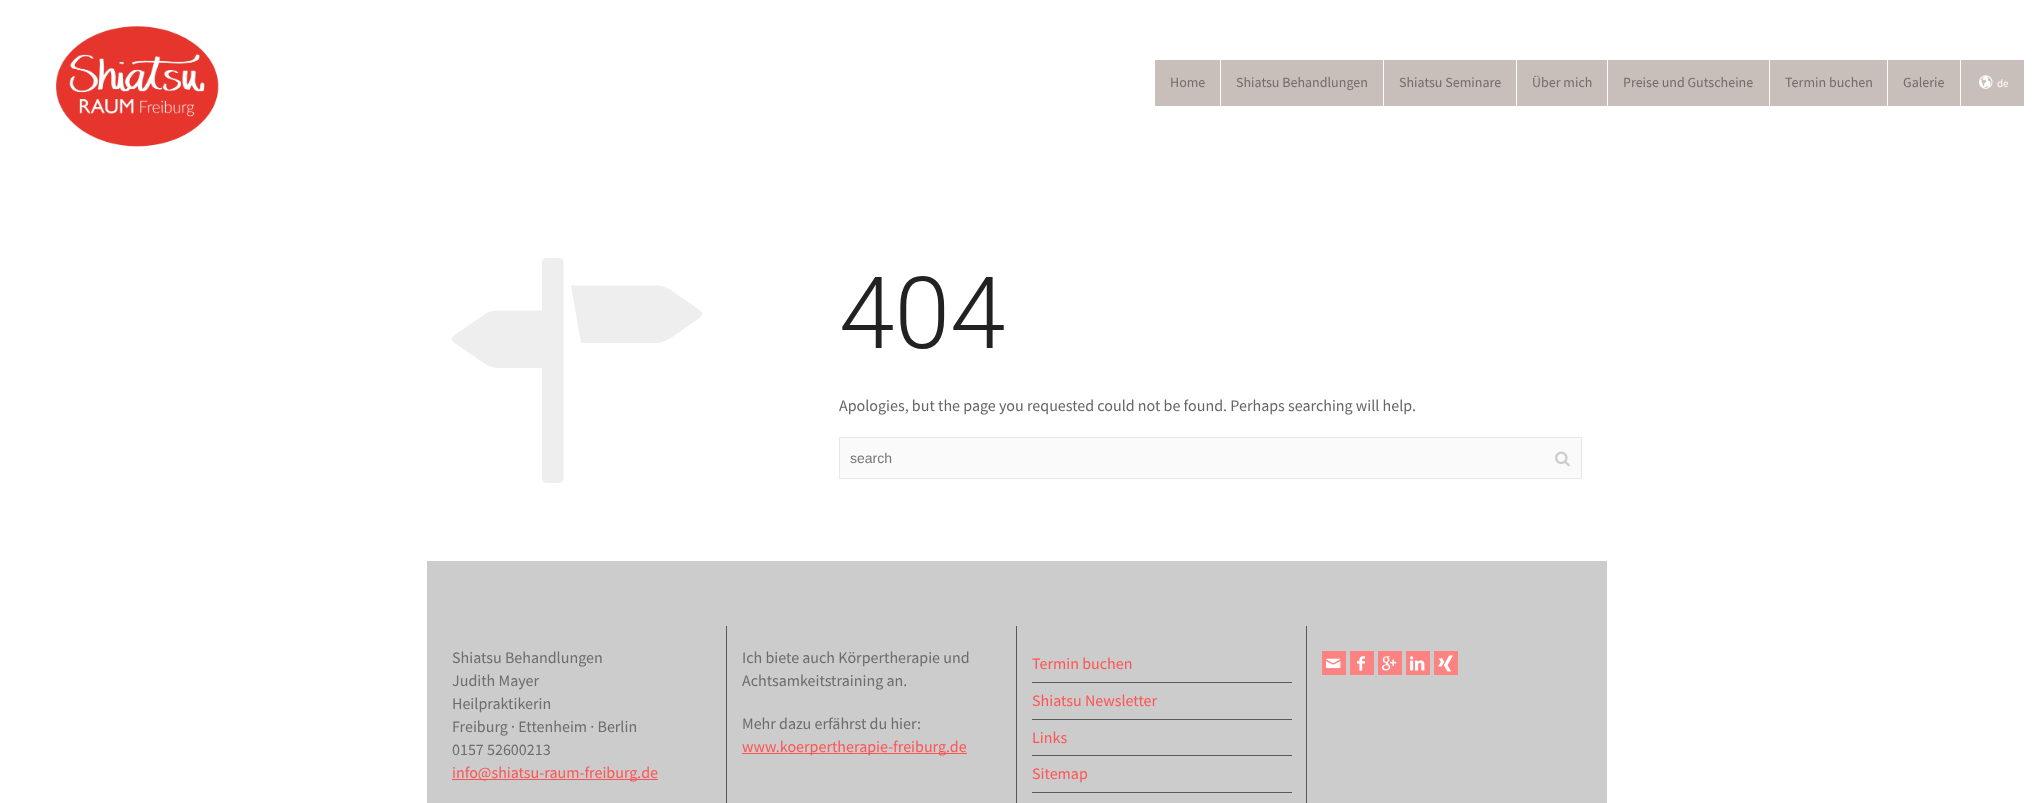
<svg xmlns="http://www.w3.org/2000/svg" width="2034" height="803">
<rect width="100%" height="100%" fill="#fff"/>
<image x="56" y="26" width="163" height="121" href="media/1.png"/>
<rect x="1155" y="60" width="65" height="46" fill="#c8bfbb"/>
<text x="1170" y="87" style="font-family:Source Sans Pro;font-size:14px;fill:#746b6b">Home</text>
<rect x="1221" y="60" width="162" height="46" fill="#c8bfbb"/>
<text x="1236" y="87" style="font-family:Source Sans Pro;font-size:14px;fill:#746b6b">Shiatsu Behandlungen</text>
<rect x="1384" y="60" width="132" height="46" fill="#c8bfbb"/>
<text x="1399" y="87" style="font-family:Source Sans Pro;font-size:14px;fill:#746b6b">Shiatsu Seminare</text>
<rect x="1517" y="60" width="90" height="46" fill="#c8bfbb"/>
<text x="1532" y="87" style="font-family:Source Sans Pro;font-size:14px;fill:#746b6b">Über mich</text>
<rect x="1608" y="60" width="161" height="46" fill="#c8bfbb"/>
<text x="1623" y="87" style="font-family:Source Sans Pro;font-size:14px;fill:#746b6b">Preise und Gutscheine</text>
<rect x="1770" y="60" width="117" height="46" fill="#c8bfbb"/>
<text x="1785" y="87" style="font-family:Source Sans Pro;font-size:14px;fill:#746b6b">Termin buchen</text>
<rect x="1888" y="60" width="72" height="46" fill="#c8bfbb"/>
<text x="1903" y="87" style="font-family:Source Sans Pro;font-size:14px;fill:#746b6b">Galerie</text>
<rect x="1961" y="60" width="63" height="46" fill="#c8bfbb"/>
<image x="1979" y="75" width="14" height="14" href="media/2.png"/>
<text x="1997" y="87" style="font-family:Source Sans Pro;font-size:11px;fill:#fff">de</text>
<image x="452" y="258" width="250" height="225" href="media/3.png"/>
<text x="839" y="348" style="font-family:Roboto;font-size:100px;font-weight:300;fill:#222">404</text>
<text x="839" y="411" style="font-family:Source Sans Pro;font-size:16px;fill:#666">Apologies, but the page you requested could not be found. Perhaps searching will help.</text>
<rect x="839.5" y="437.5" width="742" height="41" fill="#fafafa" stroke="#e8e8e8"/>
<text x="850" y="463" style="font-family:Liberation Sans;font-size:14px;fill:#757575">search</text>
<image x="1555" y="451" width="15" height="16" href="media/4.png"/>
<rect x="427" y="561" width="1180" height="242" fill="#cdcccc"/>
<text x="452" y="663" style="font-family:Source Sans Pro;font-size:16px;fill:#6e6b6b">Shiatsu Behandlungen</text>
<text x="452" y="686" style="font-family:Source Sans Pro;font-size:16px;fill:#6e6b6b">Judith Mayer</text>
<text x="452" y="709" style="font-family:Source Sans Pro;font-size:16px;fill:#6e6b6b">Heilpraktikerin</text>
<text x="452" y="732" style="font-family:Source Sans Pro;font-size:16px;fill:#6e6b6b">Freiburg · Ettenheim · Berlin</text>
<text x="452" y="755" style="font-family:Source Sans Pro;font-size:16px;fill:#6e6b6b">0157 52600213</text>
<rect x="452" y="779" width="206" height="1" fill="#ff5454"/>
<text x="452" y="778" style="font-family:Source Sans Pro;font-size:16px;fill:#ff5454">info@shiatsu-raum-freiburg.de</text>
<rect x="726" y="626" width="1" height="177" fill="#5a5959"/>
<text x="742" y="663" style="font-family:Source Sans Pro;font-size:16px;fill:#6e6b6b">Ich biete auch Körpertherapie und</text>
<text x="742" y="686" style="font-family:Source Sans Pro;font-size:16px;fill:#6e6b6b">Achtsamkeitstraining an.</text>
<text x="742" y="729" style="font-family:Source Sans Pro;font-size:16px;fill:#6e6b6b">Mehr dazu erfährst du hier:</text>
<rect x="742" y="753" width="225" height="1" fill="#ff5454"/>
<text x="742" y="752" style="font-family:Source Sans Pro;font-size:16px;fill:#ff5454">www.koerpertherapie-freiburg.de</text>
<rect x="1016" y="626" width="1" height="177" fill="#5a5959"/>
<rect x="1032" y="682" width="260" height="1" fill="#5a5959"/>
<text x="1032" y="669" style="font-family:Source Sans Pro;font-size:16px;fill:#ff5454">Termin buchen</text>
<rect x="1032" y="719" width="260" height="1" fill="#5a5959"/>
<text x="1032" y="706" style="font-family:Source Sans Pro;font-size:16px;fill:#ff5454">Shiatsu Newsletter</text>
<rect x="1032" y="755" width="260" height="1" fill="#5a5959"/>
<text x="1032" y="743" style="font-family:Source Sans Pro;font-size:16px;fill:#ff5454">Links</text>
<rect x="1032" y="792" width="260" height="1" fill="#5a5959"/>
<text x="1032" y="779" style="font-family:Source Sans Pro;font-size:16px;fill:#ff5454">Sitemap</text>
<rect x="1306" y="626" width="1" height="177" fill="#5a5959"/>
<rect x="1322" y="651" width="24" height="24" fill="#fd8282"/>
<image x="1326" y="658" width="15" height="11" href="media/5.png"/>
<rect x="1350" y="651" width="24" height="24" fill="#fd8282"/>
<image x="1357" y="656" width="8" height="15" href="media/6.png"/>
<rect x="1378" y="651" width="24" height="24" fill="#fd8282"/>
<image x="1382" y="656" width="15" height="15" href="media/7.png"/>
<rect x="1406" y="651" width="24" height="24" fill="#fd8282"/>
<image x="1410" y="656" width="15" height="15" href="media/8.png"/>
<rect x="1434" y="651" width="24" height="24" fill="#fd8282"/>
<image x="1438" y="655" width="15" height="17" href="media/9.png"/>
</svg>
